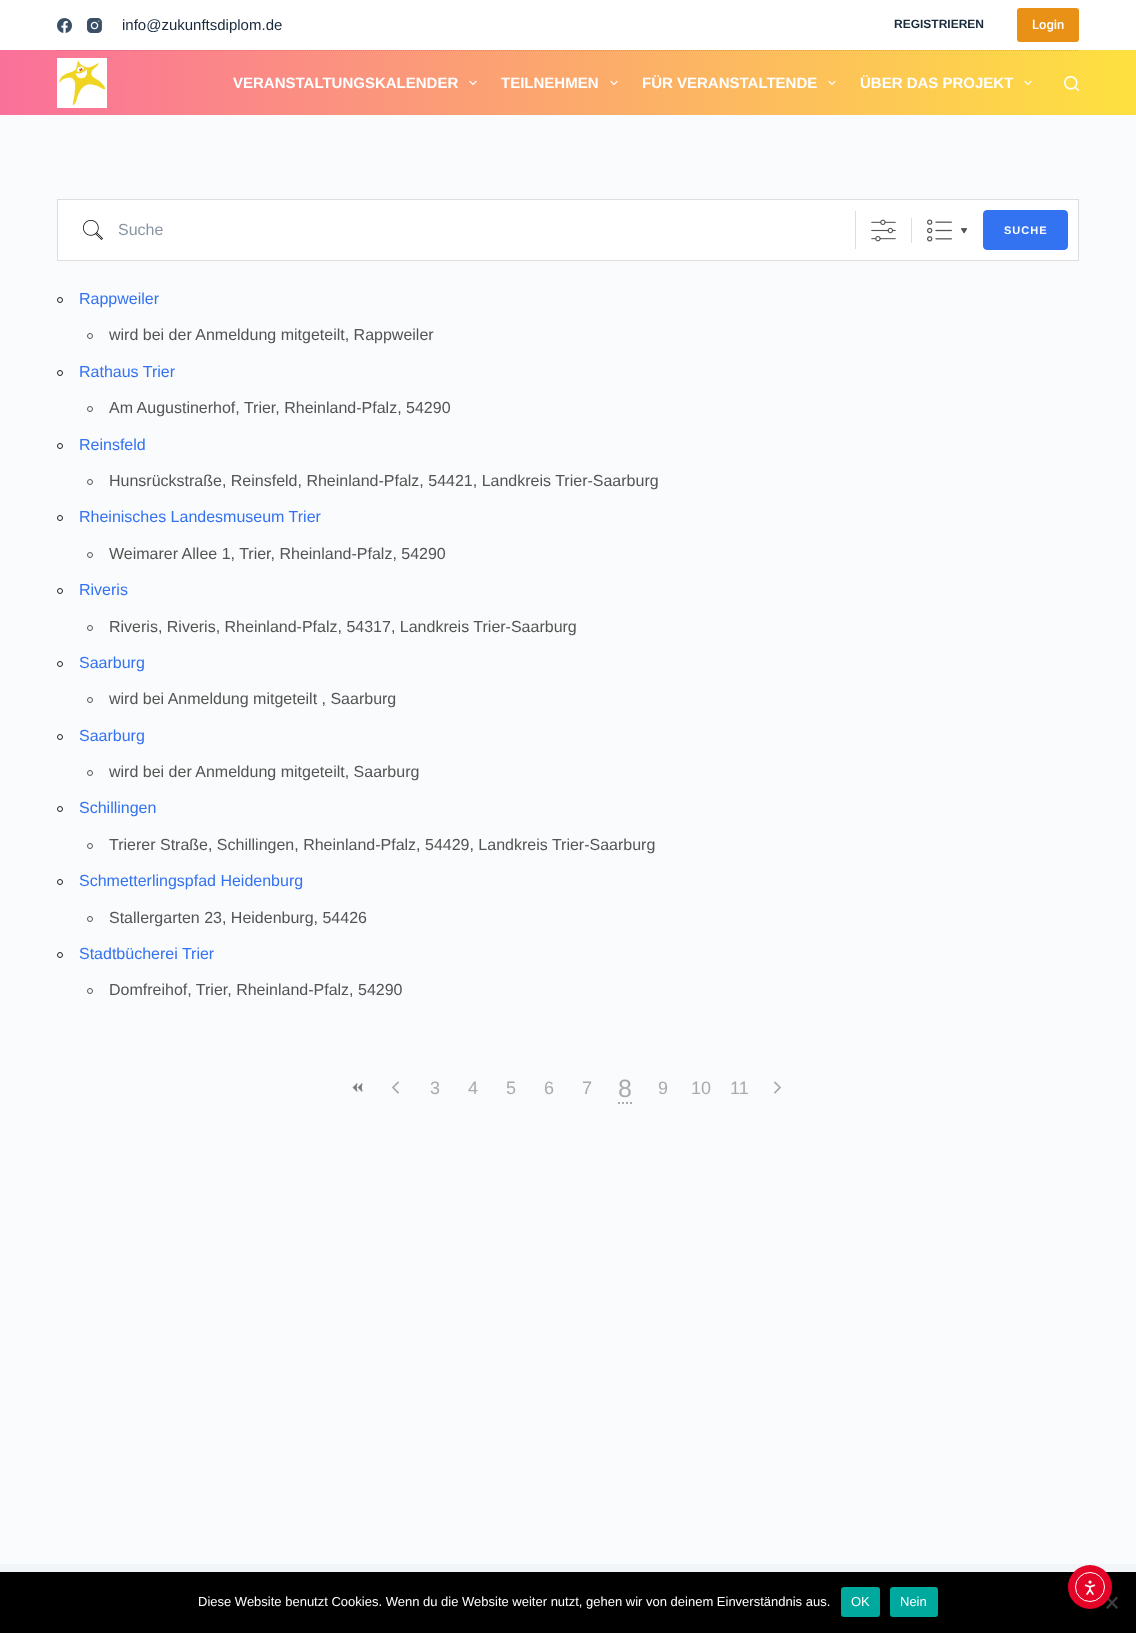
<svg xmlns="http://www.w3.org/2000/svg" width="1136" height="1633">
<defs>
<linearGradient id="g1" gradientUnits="userSpaceOnUse" x1="0" y1="83" x2="1136" y2="82"><stop offset="0" stop-color="#fa709a"/><stop offset="1" stop-color="#fee140"/></linearGradient>
</defs>
<rect width="100%" height="100%" fill="#fafbfc"/>
<rect width="1136" height="50" fill="#fff"/>
<image x="57" y="18" width="15" height="15" href="media/1.png"/>
<image x="87" y="18" width="15" height="15" href="media/2.png"/>
<text x="122" y="30" style="font-family:Liberation Sans;font-size:15px;fill:#192a3d">info@zukunftsdiplom.de</text>
<text x="894" y="28" style="font-family:Liberation Sans;font-size:12px;font-weight:bold;fill:#192a3d">REGISTRIEREN</text>
<rect x="1017" y="8" width="62" height="34" rx="3" fill="#e99116"/>
<text x="1032" y="29" style="font-family:Roboto;font-size:13px;font-weight:500;fill:#fff">Login</text>
<rect y="50" width="1136" height="65" fill="url(#g1)"/>
<path d="M57 50.5h1022" fill="none" stroke="#2c3e5033" stroke-dasharray="1 1"/>
<image x="57" y="58" width="50" height="50" href="media/3.png"/>
<text x="233" y="88" style="font-family:Liberation Sans;font-size:15px;font-weight:bold;fill:#fff">VERANSTALTUNGSKALENDER</text>
<image x="469" y="80" width="8" height="6" href="media/4.png"/>
<text x="501" y="88" style="font-family:Liberation Sans;font-size:15px;font-weight:bold;fill:#fff">TEILNEHMEN</text>
<image x="610" y="80" width="8" height="6" href="media/5.png"/>
<text x="642" y="88" style="font-family:Liberation Sans;font-size:15px;font-weight:bold;fill:#fff">FÜR VERANSTALTENDE</text>
<image x="828" y="80" width="8" height="6" href="media/6.png"/>
<text x="860" y="88" style="font-family:Liberation Sans;font-size:15px;font-weight:bold;fill:#fff">ÜBER DAS PROJEKT</text>
<image x="1024" y="80" width="8" height="6" href="media/7.png"/>
<image x="1064" y="76" width="15" height="15" href="media/8.png"/>
<rect x="57.5" y="199.5" width="1021" height="61" fill="#fff" stroke="#dedede"/>
<rect x="855" y="211" width="1" height="38" fill="#dedede"/>
<image x="83" y="220" width="20" height="20" href="media/9.png"/>
<text x="118" y="235" style="font-family:Liberation Sans;font-size:16px;fill:#8995a3">Suche</text>
<image x="871" y="219" width="25" height="23" href="media/10.png"/>
<rect x="911" y="218" width="1" height="25" fill="#dedede"/>
<image x="961" y="228" width="7" height="6" href="media/11.png"/>
<image x="927" y="219" width="25" height="23" href="media/12.png"/>
<rect x="983.5" y="210.5" width="84" height="39" rx="3.5" fill="#3372f0" stroke="#3372f0"/>
<text x="1004" y="234" style="font-family:Liberation Sans;font-size:11px;font-weight:bold;letter-spacing:1px;fill:#fff">SUCHE</text>
<circle cx="60" cy="300" r="2.5" fill="none" stroke="#212121"/>
<text x="79" y="304" style="font-family:Liberation Sans;font-size:16px;fill:#3372f0">Rappweiler</text>
<circle cx="90" cy="336" r="2.5" fill="none" stroke="#545454"/>
<text x="109" y="340" style="font-family:Liberation Sans;font-size:16px;fill:#545454">wird bei der Anmeldung mitgeteilt, Rappweiler</text>
<circle cx="60" cy="373" r="2.5" fill="none" stroke="#212121"/>
<text x="79" y="377" style="font-family:Liberation Sans;font-size:16px;fill:#3372f0">Rathaus Trier</text>
<circle cx="90" cy="409" r="2.5" fill="none" stroke="#545454"/>
<text x="109" y="413" style="font-family:Liberation Sans;font-size:16px;fill:#545454">Am Augustinerhof, Trier, Rheinland-Pfalz, 54290</text>
<circle cx="60" cy="446" r="2.5" fill="none" stroke="#212121"/>
<text x="79" y="450" style="font-family:Liberation Sans;font-size:16px;fill:#3372f0">Reinsfeld</text>
<circle cx="90" cy="482" r="2.5" fill="none" stroke="#545454"/>
<text x="109" y="486" style="font-family:Liberation Sans;font-size:16px;fill:#545454">Hunsrückstraße, Reinsfeld, Rheinland-Pfalz, 54421, Landkreis Trier-Saarburg</text>
<circle cx="60" cy="518" r="2.5" fill="none" stroke="#212121"/>
<text x="79" y="522" style="font-family:Liberation Sans;font-size:16px;fill:#3372f0">Rheinisches Landesmuseum Trier</text>
<circle cx="90" cy="555" r="2.5" fill="none" stroke="#545454"/>
<text x="109" y="559" style="font-family:Liberation Sans;font-size:16px;fill:#545454">Weimarer Allee 1, Trier, Rheinland-Pfalz, 54290</text>
<circle cx="60" cy="591" r="2.5" fill="none" stroke="#212121"/>
<text x="79" y="595" style="font-family:Liberation Sans;font-size:16px;fill:#3372f0">Riveris</text>
<circle cx="90" cy="628" r="2.5" fill="none" stroke="#545454"/>
<text x="109" y="632" style="font-family:Liberation Sans;font-size:16px;fill:#545454">Riveris, Riveris, Rheinland-Pfalz, 54317, Landkreis Trier-Saarburg</text>
<circle cx="60" cy="664" r="2.5" fill="none" stroke="#212121"/>
<text x="79" y="668" style="font-family:Liberation Sans;font-size:16px;fill:#3372f0">Saarburg</text>
<circle cx="90" cy="700" r="2.5" fill="none" stroke="#545454"/>
<text x="109" y="704" style="font-family:Liberation Sans;font-size:16px;fill:#545454">wird bei Anmeldung mitgeteilt , Saarburg</text>
<circle cx="60" cy="737" r="2.5" fill="none" stroke="#212121"/>
<text x="79" y="741" style="font-family:Liberation Sans;font-size:16px;fill:#3372f0">Saarburg</text>
<circle cx="90" cy="773" r="2.5" fill="none" stroke="#545454"/>
<text x="109" y="777" style="font-family:Liberation Sans;font-size:16px;fill:#545454">wird bei der Anmeldung mitgeteilt, Saarburg</text>
<circle cx="60" cy="809" r="2.5" fill="none" stroke="#212121"/>
<text x="79" y="813" style="font-family:Liberation Sans;font-size:16px;fill:#3372f0">Schillingen</text>
<circle cx="90" cy="846" r="2.5" fill="none" stroke="#545454"/>
<text x="109" y="850" style="font-family:Liberation Sans;font-size:16px;fill:#545454">Trierer Straße, Schillingen, Rheinland-Pfalz, 54429, Landkreis Trier-Saarburg</text>
<circle cx="60" cy="882" r="2.5" fill="none" stroke="#212121"/>
<text x="79" y="886" style="font-family:Liberation Sans;font-size:16px;fill:#3372f0">Schmetterlingspfad Heidenburg</text>
<circle cx="90" cy="919" r="2.5" fill="none" stroke="#545454"/>
<text x="109" y="923" style="font-family:Liberation Sans;font-size:16px;fill:#545454">Stallergarten 23, Heidenburg, 54426</text>
<circle cx="60" cy="955" r="2.5" fill="none" stroke="#212121"/>
<text x="79" y="959" style="font-family:Liberation Sans;font-size:16px;fill:#3372f0">Stadtbücherei Trier</text>
<circle cx="90" cy="991" r="2.5" fill="none" stroke="#545454"/>
<text x="109" y="995" style="font-family:Liberation Sans;font-size:16px;fill:#545454">Domfreihof, Trier, Rheinland-Pfalz, 54290</text>
<image x="352" y="1083" width="11" height="9" href="media/13.png"/>
<path d="M398 1082.5l-5 5l5 5" fill="none" stroke="#a8a8a9" stroke-width="1.7" stroke-linecap="square"/>
<text x="430" y="1094" style="font-family:Liberation Sans;font-size:18px;fill:#aaa">3</text>
<text x="468" y="1094" style="font-family:Liberation Sans;font-size:18px;fill:#aaa">4</text>
<text x="506" y="1094" style="font-family:Liberation Sans;font-size:18px;fill:#aaa">5</text>
<text x="544" y="1094" style="font-family:Liberation Sans;font-size:18px;fill:#aaa">6</text>
<text x="582" y="1094" style="font-family:Liberation Sans;font-size:18px;fill:#aaa">7</text>
<text x="618" y="1097" style="font-family:Liberation Sans;font-size:25px;fill:#aaa">8</text>
<path d="M618 1103h2m2 0h2m2 0h2m2 0h2" fill="none" stroke="#aaa" stroke-width="2"/>
<text x="658" y="1094" style="font-family:Liberation Sans;font-size:18px;fill:#aaa">9</text>
<text x="691" y="1094" style="font-family:Liberation Sans;font-size:18px;fill:#aaa">10</text>
<text x="730" y="1094" style="font-family:Liberation Sans;font-size:18px;fill:#aaa">11</text>
<path d="M775 1092.5l5-5l-5-5" fill="none" stroke="#a8a8a9" stroke-width="1.7" stroke-linecap="square"/>
<rect y="1564" width="1136" height="8" fill="#f2f5f7"/>
<rect y="1572" width="1136" height="61" fill="#000"/>
<text x="198" y="1606" style="font-family:Liberation Sans;font-size:13px;fill:#fff">Diese Website benutzt Cookies. Wenn du die Website weiter nutzt, gehen wir von deinem Einverständnis aus.</text>
<rect x="841" y="1587" width="39" height="30" rx="3" fill="#00a99d"/>
<text x="851" y="1606" style="font-family:Liberation Sans;font-size:13px;fill:#fff">OK</text>
<rect x="890" y="1587" width="48" height="30" rx="3" fill="#00a99d"/>
<text x="900" y="1606" style="font-family:Liberation Sans;font-size:13px;fill:#fff">Nein</text>
<path d="M1116.5 1596.5l1.5 1.5l-10.5 11l-1.5-1.5z" fill="#404040"/>
<path d="M1106 1598l1.5-1.5l10.5 11l-1.5 1.5z" fill="#404040"/>
<circle cx="1090" cy="1587" r="22" fill="#e40428"/>
<circle cx="1090" cy="1587" r="14.5" fill="none" stroke="#fff"/>
<image x="1084" y="1580" width="12" height="15" href="media/14.png"/>
</svg>
